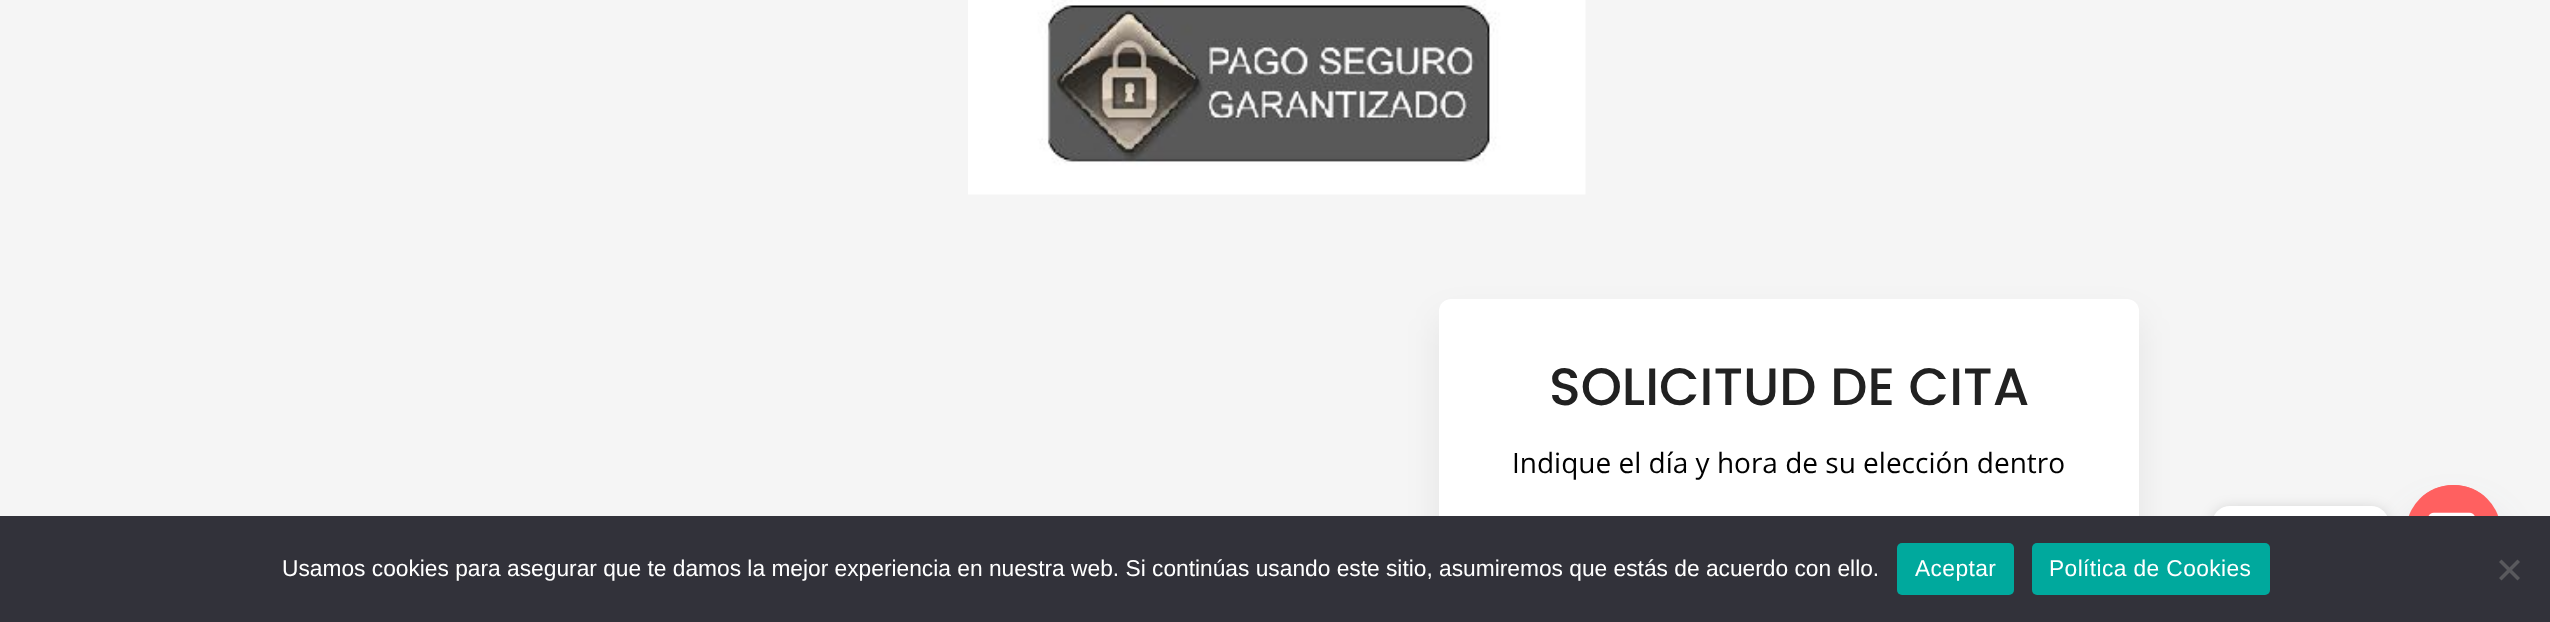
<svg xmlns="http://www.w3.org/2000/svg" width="2550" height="622">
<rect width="100%" height="100%" fill="#f5f5f5"/>
<image x="968" y="0" width="618" height="195" href="media/1.png"/>
<rect x="1439" y="317" width="700" height="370" rx="12" fill="#00000012" filter="blur(17.5px)"/>
<rect x="1439" y="299" width="700" height="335" rx="12" fill="#fff"/>
<text x="1549" y="405" style="font-family:Poppins;font-size:52.5px;font-weight:500;fill:#212121">SOLICITUD DE CITA</text>
<text x="1512" y="473" style="font-family:Open Sans;font-size:28px;fill:#000">Indique el día y hora de su elección dentro</text>
<rect x="2212" y="508" width="177" height="54" rx="18" fill="#00000026" filter="blur(7px)"/>
<rect x="2212" y="506" width="177" height="54" rx="18" fill="#fff"/>
<rect x="2406" y="513" width="95" height="94" rx="47" fill="#49687e29" filter="blur(21px)"/>
<rect x="2406" y="485" width="95" height="94" rx="47" fill="#ff6060"/>
<rect y="516" width="2550" height="106" fill="#32323a"/>
<text x="282" y="576" style="font-family:Liberation Sans;font-size:22.75px;fill:#fff">Usamos cookies para asegurar que te damos la mejor experiencia en nuestra web. Si continúas usando este sitio, asumiremos que estás de acuerdo con ello.</text>
<rect x="1897" y="543" width="117" height="52" rx="5" fill="#00a99d"/>
<text x="1915" y="576" style="font-family:Liberation Sans;font-size:22.75px;letter-spacing:0.4px;fill:#fff">Aceptar</text>
<rect x="2032" y="543" width="238" height="52" rx="5" fill="#00a99d"/>
<text x="2049" y="576" style="font-family:Liberation Sans;font-size:22.75px;letter-spacing:0.4px;fill:#fff">Política de Cookies</text>
<path d="M2517.5 559.5l2.5 2.5l-18.5 18.5l-2.5-2.5z" fill="#59595d"/>
<path d="M2499 562l2.5-2.5l18.5 18.5l-2.5 2.5z" fill="#59595d"/>
<image x="2423" y="485" width="61" height="31" href="media/2.png"/>
</svg>
